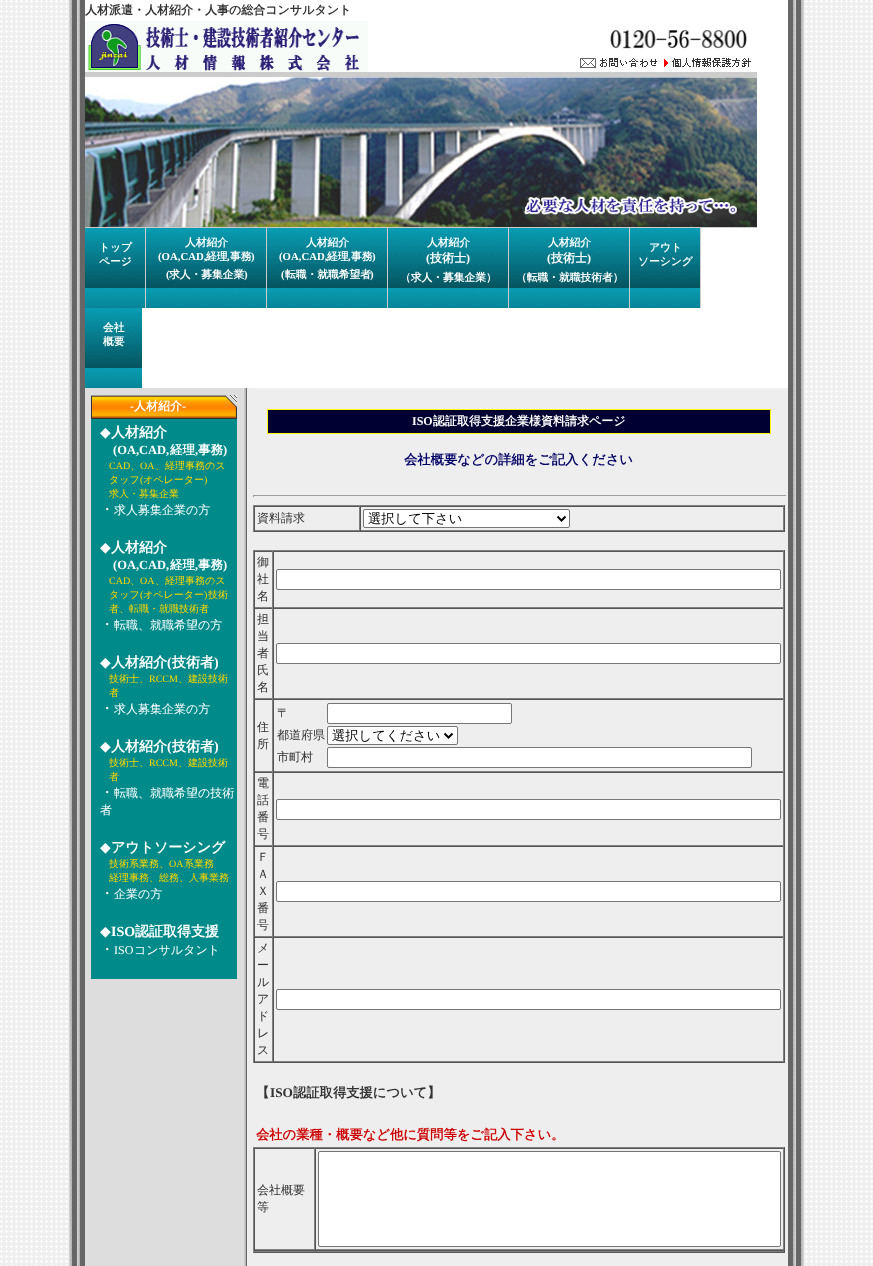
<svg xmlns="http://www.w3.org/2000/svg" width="873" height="1266">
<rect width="100%" height="100%" fill="#fff"/>
<image x="0" y="0" width="873" height="1266" href="media/1.png"/>
<image x="69" y="0" width="16" height="21" href="media/2.png"/>
<rect x="85" width="703" height="21" fill="#fff"/>
<text x="85" y="14" style="font-family:WenQuanYi Zen Hei;font-size:12px;font-weight:bold;fill:#323232">人材派遣・人材紹介・人事の総合コンサルタント</text>
<image x="788" y="0" width="16" height="21" href="media/3.png"/>
<image x="69" y="21" width="16" height="1245" href="media/4.png"/>
<rect x="142" y="21" width="646" height="367" fill="#fff"/>
<image x="85" y="21" width="283" height="51" href="media/5.png"/>
<image x="610" y="29" width="137" height="20" href="media/6.png"/>
<image x="580" y="58" width="77" height="10" href="media/7.png"/>
<image x="664" y="58" width="87" height="9" href="media/8.png"/>
<rect x="85" y="72" width="672" height="5" fill="#ccc"/>
<image x="85" y="77" width="672" height="150" href="media/9.png"/>
<rect x="85" y="227" width="672" height="1" fill="#ccc"/>
<image x="85" y="228" width="60" height="80" href="media/10.png"/>
<rect x="145" y="228" width="1" height="80" fill="#ccc"/>
<text x="99" y="251" style="font-family:WenQuanYi Zen Hei;font-size:10.75px;font-weight:bold;fill:#fff">トップ</text>
<text x="99" y="265" style="font-family:WenQuanYi Zen Hei;font-size:10.75px;font-weight:bold;fill:#fff">ページ</text>
<image x="146" y="228" width="120" height="80" href="media/11.png"/>
<rect x="266" y="228" width="1" height="80" fill="#ccc"/>
<text x="185" y="246" style="font-family:WenQuanYi Zen Hei;font-size:10.75px;font-weight:bold;fill:#fff">人材紹介</text>
<text x="158" y="260" style="font-family:Liberation Serif;font-size:10.75px;font-weight:bold;fill:#fff">(OA,CAD,</text>
<text x="206" y="260" style="font-family:WenQuanYi Zen Hei;font-size:10.75px;font-weight:bold;fill:#fff">経理</text>
<text x="227" y="260" style="font-family:Liberation Serif;font-size:10.75px;font-weight:bold;fill:#fff">,</text>
<text x="230" y="260" style="font-family:WenQuanYi Zen Hei;font-size:10.75px;font-weight:bold;fill:#fff">事務</text>
<text x="251" y="260" style="font-family:Liberation Serif;font-size:10.75px;font-weight:bold;fill:#fff">)</text>
<text x="166" y="278" style="font-family:Liberation Serif;font-size:10.75px;font-weight:bold;fill:#fff">(</text>
<text x="169" y="278" style="font-family:WenQuanYi Zen Hei;font-size:10.75px;font-weight:bold;fill:#fff">求人・募集企業</text>
<text x="244" y="278" style="font-family:Liberation Serif;font-size:10.75px;font-weight:bold;fill:#fff">)</text>
<image x="267" y="228" width="120" height="80" href="media/11.png"/>
<rect x="387" y="228" width="1" height="80" fill="#ccc"/>
<text x="306" y="246" style="font-family:WenQuanYi Zen Hei;font-size:10.75px;font-weight:bold;fill:#fff">人材紹介</text>
<text x="279" y="260" style="font-family:Liberation Serif;font-size:10.75px;font-weight:bold;fill:#fff">(OA,CAD,</text>
<text x="327" y="260" style="font-family:WenQuanYi Zen Hei;font-size:10.75px;font-weight:bold;fill:#fff">経理</text>
<text x="348" y="260" style="font-family:Liberation Serif;font-size:10.75px;font-weight:bold;fill:#fff">,</text>
<text x="351" y="260" style="font-family:WenQuanYi Zen Hei;font-size:10.75px;font-weight:bold;fill:#fff">事務</text>
<text x="372" y="260" style="font-family:Liberation Serif;font-size:10.75px;font-weight:bold;fill:#fff">)</text>
<text x="281" y="278" style="font-family:Liberation Serif;font-size:10.75px;font-weight:bold;fill:#fff">(</text>
<text x="285" y="278" style="font-family:WenQuanYi Zen Hei;font-size:10.75px;font-weight:bold;fill:#fff">転職・就職希望者</text>
<text x="370" y="278" style="font-family:Liberation Serif;font-size:10.75px;font-weight:bold;fill:#fff">)</text>
<image x="388" y="228" width="120" height="80" href="media/11.png"/>
<rect x="508" y="228" width="1" height="80" fill="#ccc"/>
<text x="427" y="246" style="font-family:WenQuanYi Zen Hei;font-size:10.75px;font-weight:bold;fill:#fff">人材紹介</text>
<text x="426" y="262" style="font-family:Liberation Serif;font-size:12px;font-weight:bold;fill:#fff">(</text>
<text x="430" y="262" style="font-family:WenQuanYi Zen Hei;font-size:12px;font-weight:bold;fill:#fff">技術士</text>
<text x="466" y="262" style="font-family:Liberation Serif;font-size:12px;font-weight:bold;fill:#fff">)</text>
<text x="400" y="281" style="font-family:WenQuanYi Zen Hei;font-size:10.75px;font-weight:bold;fill:#fff">（求人・募集企業）</text>
<image x="509" y="228" width="120" height="80" href="media/11.png"/>
<rect x="629" y="228" width="1" height="80" fill="#ccc"/>
<text x="548" y="246" style="font-family:WenQuanYi Zen Hei;font-size:10.75px;font-weight:bold;fill:#fff">人材紹介</text>
<text x="547" y="262" style="font-family:Liberation Serif;font-size:12px;font-weight:bold;fill:#fff">(</text>
<text x="551" y="262" style="font-family:WenQuanYi Zen Hei;font-size:12px;font-weight:bold;fill:#fff">技術士</text>
<text x="587" y="262" style="font-family:Liberation Serif;font-size:12px;font-weight:bold;fill:#fff">)</text>
<text x="516" y="281" style="font-family:WenQuanYi Zen Hei;font-size:10.75px;font-weight:bold;fill:#fff">（転職・就職技術者）</text>
<image x="630" y="228" width="70" height="80" href="media/12.png"/>
<rect x="700" y="228" width="1" height="80" fill="#ccc"/>
<text x="649" y="251" style="font-family:WenQuanYi Zen Hei;font-size:10.75px;font-weight:bold;fill:#fff">アウト</text>
<text x="638" y="265" style="font-family:WenQuanYi Zen Hei;font-size:10.75px;font-weight:bold;fill:#fff">ソーシング</text>
<image x="85" y="308" width="57" height="80" href="media/13.png"/>
<text x="103" y="331" style="font-family:WenQuanYi Zen Hei;font-size:10.75px;font-weight:bold;fill:#fff">会社</text>
<text x="103" y="345" style="font-family:WenQuanYi Zen Hei;font-size:10.75px;font-weight:bold;fill:#fff">概要</text>
<rect x="85" y="388" width="158" height="878" fill="#ddd"/>
<image x="91" y="395" width="146" height="24" href="media/14.png"/>
<text x="130" y="410" style="font-family:Liberation Serif;font-size:12px;font-weight:bold;fill:#fff">-</text>
<text x="134" y="410" style="font-family:WenQuanYi Zen Hei;font-size:12px;font-weight:bold;fill:#fff">人材紹介</text>
<text x="182" y="410" style="font-family:Liberation Serif;font-size:12px;font-weight:bold;fill:#fff">-</text>
<rect x="91" y="419" width="146" height="560" fill="#008a8a"/>
<text x="100" y="437" style="font-family:DejaVu Sans;font-size:14px;fill:#fff">◆</text>
<text x="111" y="437" style="font-family:WenQuanYi Zen Hei;font-size:14px;font-weight:bold;fill:#fff">人材紹介</text>
<text x="113" y="454" style="font-family:Liberation Serif;font-size:12.5px;font-weight:bold;fill:#fff">(OA,CAD,</text>
<text x="170" y="454" style="font-family:WenQuanYi Zen Hei;font-size:12.5px;font-weight:bold;fill:#fff">経理</text>
<text x="195" y="454" style="font-family:Liberation Serif;font-size:12.5px;font-weight:bold;fill:#fff">,</text>
<text x="198" y="454" style="font-family:WenQuanYi Zen Hei;font-size:12.5px;font-weight:bold;fill:#fff">事務</text>
<text x="223" y="454" style="font-family:Liberation Serif;font-size:12.5px;font-weight:bold;fill:#fff">)</text>
<text x="109" y="469" style="font-family:Liberation Serif;font-size:10px;fill:#ffd700">CAD</text>
<text x="130" y="469" style="font-family:WenQuanYi Zen Hei;font-size:10px;font-weight:500;fill:#ffd700">、</text>
<text x="140" y="469" style="font-family:Liberation Serif;font-size:10px;fill:#ffd700">OA</text>
<text x="155" y="469" style="font-family:WenQuanYi Zen Hei;font-size:10px;font-weight:500;fill:#ffd700">、経理事務のス</text>
<text x="109" y="483" style="font-family:WenQuanYi Zen Hei;font-size:10px;font-weight:500;fill:#ffd700">タッフ</text>
<text x="140" y="483" style="font-family:Liberation Serif;font-size:10px;fill:#ffd700">(</text>
<text x="143" y="483" style="font-family:WenQuanYi Zen Hei;font-size:10px;font-weight:500;fill:#ffd700">オペレーター</text>
<text x="204" y="483" style="font-family:Liberation Serif;font-size:10px;fill:#ffd700">)</text>
<text x="109" y="497" style="font-family:WenQuanYi Zen Hei;font-size:10px;font-weight:500;fill:#ffd700">求人・募集企業</text>
<text x="100" y="514" style="font-family:WenQuanYi Zen Hei;font-size:14px;font-weight:500;fill:#fff">・</text>
<text x="114" y="514" style="font-family:WenQuanYi Zen Hei;font-size:12px;font-weight:500;fill:#fff">求人募集企業の方</text>
<text x="100" y="552" style="font-family:DejaVu Sans;font-size:14px;fill:#fff">◆</text>
<text x="111" y="552" style="font-family:WenQuanYi Zen Hei;font-size:14px;font-weight:bold;fill:#fff">人材紹介</text>
<text x="113" y="569" style="font-family:Liberation Serif;font-size:12.5px;font-weight:bold;fill:#fff">(OA,CAD,</text>
<text x="170" y="569" style="font-family:WenQuanYi Zen Hei;font-size:12.5px;font-weight:bold;fill:#fff">経理</text>
<text x="195" y="569" style="font-family:Liberation Serif;font-size:12.5px;font-weight:bold;fill:#fff">,</text>
<text x="198" y="569" style="font-family:WenQuanYi Zen Hei;font-size:12.5px;font-weight:bold;fill:#fff">事務</text>
<text x="223" y="569" style="font-family:Liberation Serif;font-size:12.5px;font-weight:bold;fill:#fff">)</text>
<text x="109" y="584" style="font-family:Liberation Serif;font-size:10px;fill:#ffd700">CAD</text>
<text x="130" y="584" style="font-family:WenQuanYi Zen Hei;font-size:10px;font-weight:500;fill:#ffd700">、</text>
<text x="140" y="584" style="font-family:Liberation Serif;font-size:10px;fill:#ffd700">OA</text>
<text x="155" y="584" style="font-family:WenQuanYi Zen Hei;font-size:10px;font-weight:500;fill:#ffd700">、経理事務のス</text>
<text x="109" y="598" style="font-family:WenQuanYi Zen Hei;font-size:10px;font-weight:500;fill:#ffd700">タッフ</text>
<text x="140" y="598" style="font-family:Liberation Serif;font-size:10px;fill:#ffd700">(</text>
<text x="143" y="598" style="font-family:WenQuanYi Zen Hei;font-size:10px;font-weight:500;fill:#ffd700">オペレーター</text>
<text x="204" y="598" style="font-family:Liberation Serif;font-size:10px;fill:#ffd700">)</text>
<text x="208" y="598" style="font-family:WenQuanYi Zen Hei;font-size:10px;font-weight:500;fill:#ffd700">技術</text>
<text x="109" y="612" style="font-family:WenQuanYi Zen Hei;font-size:10px;font-weight:500;fill:#ffd700">者、転職・就職技術者</text>
<text x="100" y="629" style="font-family:WenQuanYi Zen Hei;font-size:14px;font-weight:500;fill:#fff">・</text>
<text x="114" y="629" style="font-family:WenQuanYi Zen Hei;font-size:12px;font-weight:500;fill:#fff">転職、就職希望の方</text>
<text x="100" y="667" style="font-family:DejaVu Sans;font-size:14px;fill:#fff">◆</text>
<text x="111" y="667" style="font-family:WenQuanYi Zen Hei;font-size:14px;font-weight:bold;fill:#fff">人材紹介</text>
<text x="167" y="667" style="font-family:Liberation Serif;font-size:14px;font-weight:bold;fill:#fff">(</text>
<text x="172" y="667" style="font-family:WenQuanYi Zen Hei;font-size:14px;font-weight:bold;fill:#fff">技術者</text>
<text x="214" y="667" style="font-family:Liberation Serif;font-size:14px;font-weight:bold;fill:#fff">)</text>
<text x="109" y="682" style="font-family:WenQuanYi Zen Hei;font-size:10px;font-weight:500;fill:#ffd700">技術士、</text>
<text x="149" y="682" style="font-family:Liberation Serif;font-size:10px;fill:#ffd700">RCCM</text>
<text x="178" y="682" style="font-family:WenQuanYi Zen Hei;font-size:10px;font-weight:500;fill:#ffd700">、建設技術</text>
<text x="109" y="696" style="font-family:WenQuanYi Zen Hei;font-size:10px;font-weight:500;fill:#ffd700">者</text>
<text x="100" y="713" style="font-family:WenQuanYi Zen Hei;font-size:14px;font-weight:500;fill:#fff">・</text>
<text x="114" y="713" style="font-family:WenQuanYi Zen Hei;font-size:12px;font-weight:500;fill:#fff">求人募集企業の方</text>
<text x="100" y="751" style="font-family:DejaVu Sans;font-size:14px;fill:#fff">◆</text>
<text x="111" y="751" style="font-family:WenQuanYi Zen Hei;font-size:14px;font-weight:bold;fill:#fff">人材紹介</text>
<text x="167" y="751" style="font-family:Liberation Serif;font-size:14px;font-weight:bold;fill:#fff">(</text>
<text x="172" y="751" style="font-family:WenQuanYi Zen Hei;font-size:14px;font-weight:bold;fill:#fff">技術者</text>
<text x="214" y="751" style="font-family:Liberation Serif;font-size:14px;font-weight:bold;fill:#fff">)</text>
<text x="109" y="766" style="font-family:WenQuanYi Zen Hei;font-size:10px;font-weight:500;fill:#ffd700">技術士、</text>
<text x="149" y="766" style="font-family:Liberation Serif;font-size:10px;fill:#ffd700">RCCM</text>
<text x="178" y="766" style="font-family:WenQuanYi Zen Hei;font-size:10px;font-weight:500;fill:#ffd700">、建設技術</text>
<text x="109" y="780" style="font-family:WenQuanYi Zen Hei;font-size:10px;font-weight:500;fill:#ffd700">者</text>
<text x="100" y="797" style="font-family:WenQuanYi Zen Hei;font-size:14px;font-weight:500;fill:#fff">・</text>
<text x="114" y="797" style="font-family:WenQuanYi Zen Hei;font-size:12px;font-weight:500;fill:#fff">転職、就職希望の技術</text>
<text x="100" y="814" style="font-family:WenQuanYi Zen Hei;font-size:12px;font-weight:500;fill:#fff">者</text>
<text x="100" y="852" style="font-family:DejaVu Sans;font-size:14px;fill:#fff">◆</text>
<text x="111" y="852" style="font-family:WenQuanYi Zen Hei;font-size:14px;font-weight:bold;fill:#fff">アウトソーシング</text>
<text x="109" y="867" style="font-family:WenQuanYi Zen Hei;font-size:10px;font-weight:500;fill:#ffd700">技術系業務、</text>
<text x="169" y="867" style="font-family:Liberation Serif;font-size:10px;fill:#ffd700">OA</text>
<text x="184" y="867" style="font-family:WenQuanYi Zen Hei;font-size:10px;font-weight:500;fill:#ffd700">系業務</text>
<text x="109" y="881" style="font-family:WenQuanYi Zen Hei;font-size:10px;font-weight:500;fill:#ffd700">経理事務、総務、人事業務</text>
<text x="100" y="898" style="font-family:WenQuanYi Zen Hei;font-size:14px;font-weight:500;fill:#fff">・</text>
<text x="114" y="898" style="font-family:WenQuanYi Zen Hei;font-size:12px;font-weight:500;fill:#fff">企業の方</text>
<text x="100" y="936" style="font-family:DejaVu Sans;font-size:14px;fill:#fff">◆</text>
<text x="111" y="936" style="font-family:Liberation Serif;font-size:14px;font-weight:bold;fill:#fff">ISO</text>
<text x="135" y="936" style="font-family:WenQuanYi Zen Hei;font-size:14px;font-weight:bold;fill:#fff">認証取得支援</text>
<text x="100" y="954" style="font-family:WenQuanYi Zen Hei;font-size:14px;font-weight:500;fill:#fff">・</text>
<text x="114" y="954" style="font-family:Liberation Serif;font-size:12px;fill:#fff">ISO</text>
<text x="134" y="954" style="font-family:WenQuanYi Zen Hei;font-size:12px;font-weight:500;fill:#fff">コンサルタント</text>
<image x="243" y="388" width="7" height="878" href="media/15.png"/>
<rect x="250" y="390" width="538" height="876" fill="#eee"/>
<rect x="267" y="409" width="504" height="25" fill="#ff0"/>
<rect x="268" y="410" width="502" height="23" fill="#003"/>
<text x="412" y="425" style="font-family:Liberation Serif;font-size:12px;font-weight:bold;fill:#fff">ISO</text>
<text x="433" y="425" style="font-family:WenQuanYi Zen Hei;font-size:12px;font-weight:bold;fill:#fff">認証取得支援企業様資料請求ページ</text>
<text x="404" y="464" style="font-family:WenQuanYi Zen Hei;font-size:13.3px;font-weight:bold;fill:#006">会社概要などの詳細をご記入ください</text>
<rect x="253" y="495" width="534" height="1" fill="#9f9f9f"/>
<rect x="786" y="495" width="1" height="2" fill="#eee"/>
<rect x="253" y="495" width="1" height="2" fill="#9f9f9f"/>
<rect x="253" y="505" width="532" height="1" fill="#808080"/>
<rect x="784" y="505" width="1" height="27" fill="#555"/>
<rect x="253" y="531" width="532" height="1" fill="#555"/>
<rect x="253" y="505" width="1" height="27" fill="#808080"/>
<rect x="254" y="506" width="530" height="1" fill="#555"/>
<rect x="359" y="506" width="1" height="25" fill="#808080"/>
<rect x="254" y="530" width="106" height="1" fill="#808080"/>
<rect x="254" y="506" width="1" height="25" fill="#555"/>
<text x="257" y="522" style="font-family:WenQuanYi Zen Hei;font-size:12px;font-weight:500;fill:#323232">資料請求</text>
<rect x="783" y="506" width="1" height="25" fill="#808080"/>
<rect x="360" y="530" width="424" height="1" fill="#808080"/>
<rect x="360" y="506" width="1" height="25" fill="#555"/>
<rect x="363.5" y="509.5" width="206" height="18" rx="1.5" fill="#fff" stroke="#767676"/>
<path d="M557.5 516.5l4 4l4-4" fill="none" stroke="#000" stroke-width="2"/>
<text x="368" y="523" style="font-family:WenQuanYi Zen Hei;font-size:13.3px;font-weight:500;fill:#000">選択して下さい</text>
<rect x="253" y="550" width="532" height="1" fill="#808080"/>
<rect x="784" y="550" width="1" height="513" fill="#555"/>
<rect x="253" y="1062" width="532" height="1" fill="#555"/>
<rect x="253" y="550" width="1" height="513" fill="#808080"/>
<rect x="254" y="551" width="530" height="1" fill="#555"/>
<rect x="272" y="551" width="1" height="57" fill="#808080"/>
<rect x="254" y="607" width="19" height="1" fill="#808080"/>
<rect x="254" y="551" width="1" height="57" fill="#555"/>
<text x="257" y="566" style="font-family:WenQuanYi Zen Hei;font-size:12px;font-weight:500;fill:#323232">御</text>
<text x="257" y="583" style="font-family:WenQuanYi Zen Hei;font-size:12px;font-weight:500;fill:#323232">社</text>
<text x="257" y="600" style="font-family:WenQuanYi Zen Hei;font-size:12px;font-weight:500;fill:#323232">名</text>
<rect x="783" y="551" width="1" height="57" fill="#808080"/>
<rect x="273" y="607" width="511" height="1" fill="#808080"/>
<rect x="273" y="551" width="1" height="57" fill="#555"/>
<rect x="276.5" y="569.5" width="504" height="20" rx="1.5" fill="#fff" stroke="#767676"/>
<rect x="254" y="608" width="530" height="1" fill="#555"/>
<rect x="272" y="608" width="1" height="91" fill="#808080"/>
<rect x="254" y="698" width="19" height="1" fill="#808080"/>
<rect x="254" y="608" width="1" height="91" fill="#555"/>
<text x="257" y="623" style="font-family:WenQuanYi Zen Hei;font-size:12px;font-weight:500;fill:#323232">担</text>
<text x="257" y="640" style="font-family:WenQuanYi Zen Hei;font-size:12px;font-weight:500;fill:#323232">当</text>
<text x="257" y="657" style="font-family:WenQuanYi Zen Hei;font-size:12px;font-weight:500;fill:#323232">者</text>
<text x="257" y="674" style="font-family:WenQuanYi Zen Hei;font-size:12px;font-weight:500;fill:#323232">氏</text>
<text x="257" y="691" style="font-family:WenQuanYi Zen Hei;font-size:12px;font-weight:500;fill:#323232">名</text>
<rect x="783" y="608" width="1" height="91" fill="#808080"/>
<rect x="273" y="698" width="511" height="1" fill="#808080"/>
<rect x="273" y="608" width="1" height="91" fill="#555"/>
<rect x="276.5" y="643.5" width="504" height="20" rx="1.5" fill="#fff" stroke="#767676"/>
<rect x="254" y="699" width="530" height="1" fill="#555"/>
<rect x="272" y="699" width="1" height="73" fill="#808080"/>
<rect x="254" y="771" width="19" height="1" fill="#808080"/>
<rect x="254" y="699" width="1" height="73" fill="#555"/>
<text x="257" y="731" style="font-family:WenQuanYi Zen Hei;font-size:12px;font-weight:500;fill:#323232">住</text>
<text x="257" y="748" style="font-family:WenQuanYi Zen Hei;font-size:12px;font-weight:500;fill:#323232">所</text>
<rect x="783" y="699" width="1" height="73" fill="#808080"/>
<rect x="273" y="771" width="511" height="1" fill="#808080"/>
<rect x="273" y="699" width="1" height="73" fill="#555"/>
<text x="277" y="717" style="font-family:WenQuanYi Zen Hei;font-size:12px;font-weight:500;fill:#323232">〒</text>
<rect x="327.5" y="703.5" width="184" height="20" rx="1.5" fill="#fff" stroke="#767676"/>
<text x="277" y="739" style="font-family:WenQuanYi Zen Hei;font-size:12px;font-weight:500;fill:#323232">都道府県</text>
<rect x="327.5" y="726.5" width="130" height="18" rx="1.5" fill="#fff" stroke="#767676"/>
<path d="M444.5 733.5l4 4l4-4" fill="none" stroke="#000" stroke-width="2"/>
<text x="332" y="740" style="font-family:WenQuanYi Zen Hei;font-size:13.3px;font-weight:500;fill:#000">選択してください</text>
<text x="277" y="761" style="font-family:WenQuanYi Zen Hei;font-size:12px;font-weight:500;fill:#323232">市町村</text>
<rect x="327.5" y="747.5" width="424" height="20" rx="1.5" fill="#fff" stroke="#767676"/>
<rect x="254" y="772" width="530" height="1" fill="#555"/>
<rect x="272" y="772" width="1" height="74" fill="#808080"/>
<rect x="254" y="845" width="19" height="1" fill="#808080"/>
<rect x="254" y="772" width="1" height="74" fill="#555"/>
<text x="257" y="787" style="font-family:WenQuanYi Zen Hei;font-size:12px;font-weight:500;fill:#323232">電</text>
<text x="257" y="804" style="font-family:WenQuanYi Zen Hei;font-size:12px;font-weight:500;fill:#323232">話</text>
<text x="257" y="821" style="font-family:WenQuanYi Zen Hei;font-size:12px;font-weight:500;fill:#323232">番</text>
<text x="257" y="838" style="font-family:WenQuanYi Zen Hei;font-size:12px;font-weight:500;fill:#323232">号</text>
<rect x="783" y="772" width="1" height="74" fill="#808080"/>
<rect x="273" y="845" width="511" height="1" fill="#808080"/>
<rect x="273" y="772" width="1" height="74" fill="#555"/>
<rect x="276.5" y="799.5" width="504" height="20" rx="1.5" fill="#fff" stroke="#767676"/>
<rect x="254" y="846" width="530" height="1" fill="#555"/>
<rect x="272" y="846" width="1" height="91" fill="#808080"/>
<rect x="254" y="936" width="19" height="1" fill="#808080"/>
<rect x="254" y="846" width="1" height="91" fill="#555"/>
<text x="257" y="861" style="font-family:WenQuanYi Zen Hei;font-size:12px;font-weight:500;fill:#323232">Ｆ</text>
<text x="257" y="878" style="font-family:WenQuanYi Zen Hei;font-size:12px;font-weight:500;fill:#323232">Ａ</text>
<text x="257" y="895" style="font-family:WenQuanYi Zen Hei;font-size:12px;font-weight:500;fill:#323232">Ｘ</text>
<text x="257" y="912" style="font-family:WenQuanYi Zen Hei;font-size:12px;font-weight:500;fill:#323232">番</text>
<text x="257" y="929" style="font-family:WenQuanYi Zen Hei;font-size:12px;font-weight:500;fill:#323232">号</text>
<rect x="783" y="846" width="1" height="91" fill="#808080"/>
<rect x="273" y="936" width="511" height="1" fill="#808080"/>
<rect x="273" y="846" width="1" height="91" fill="#555"/>
<rect x="276.5" y="881.5" width="504" height="20" rx="1.5" fill="#fff" stroke="#767676"/>
<rect x="254" y="937" width="530" height="1" fill="#555"/>
<rect x="272" y="937" width="1" height="125" fill="#808080"/>
<rect x="254" y="1061" width="19" height="1" fill="#808080"/>
<rect x="254" y="937" width="1" height="125" fill="#555"/>
<text x="257" y="952" style="font-family:WenQuanYi Zen Hei;font-size:12px;font-weight:500;fill:#323232">メ</text>
<text x="257" y="969" style="font-family:WenQuanYi Zen Hei;font-size:12px;font-weight:500;fill:#323232">ー</text>
<text x="257" y="986" style="font-family:WenQuanYi Zen Hei;font-size:12px;font-weight:500;fill:#323232">ル</text>
<text x="257" y="1003" style="font-family:WenQuanYi Zen Hei;font-size:12px;font-weight:500;fill:#323232">ア</text>
<text x="257" y="1020" style="font-family:WenQuanYi Zen Hei;font-size:12px;font-weight:500;fill:#323232">ド</text>
<text x="257" y="1037" style="font-family:WenQuanYi Zen Hei;font-size:12px;font-weight:500;fill:#323232">レ</text>
<text x="257" y="1054" style="font-family:WenQuanYi Zen Hei;font-size:12px;font-weight:500;fill:#323232">ス</text>
<rect x="783" y="937" width="1" height="125" fill="#808080"/>
<rect x="273" y="1061" width="511" height="1" fill="#808080"/>
<rect x="273" y="937" width="1" height="125" fill="#555"/>
<rect x="276.5" y="989.5" width="504" height="20" rx="1.5" fill="#fff" stroke="#767676"/>
<text x="256" y="1097" style="font-family:WenQuanYi Zen Hei;font-size:13.3px;font-weight:bold;fill:#323232">【</text>
<text x="270" y="1097" style="font-family:Liberation Serif;font-size:13.3px;font-weight:bold;fill:#323232">ISO</text>
<text x="293" y="1097" style="font-family:WenQuanYi Zen Hei;font-size:13.3px;font-weight:bold;fill:#323232">認証取得支援について】</text>
<text x="256" y="1139" style="font-family:WenQuanYi Zen Hei;font-size:13.3px;font-weight:bold;fill:#c00">会社の業種・概要など他に質問等をご記入下さい。</text>
<rect x="253" y="1147" width="532" height="1" fill="#808080"/>
<rect x="784" y="1147" width="1" height="104" fill="#555"/>
<rect x="253" y="1250" width="532" height="1" fill="#555"/>
<rect x="253" y="1147" width="1" height="104" fill="#808080"/>
<rect x="254" y="1148" width="530" height="1" fill="#555"/>
<rect x="314" y="1148" width="1" height="102" fill="#808080"/>
<rect x="254" y="1249" width="61" height="1" fill="#808080"/>
<rect x="254" y="1148" width="1" height="102" fill="#555"/>
<text x="257" y="1194" style="font-family:WenQuanYi Zen Hei;font-size:12px;font-weight:500;fill:#323232">会社概要</text>
<text x="257" y="1211" style="font-family:WenQuanYi Zen Hei;font-size:12px;font-weight:500;fill:#323232">等</text>
<rect x="783" y="1148" width="1" height="102" fill="#808080"/>
<rect x="315" y="1249" width="469" height="1" fill="#808080"/>
<rect x="315" y="1148" width="1" height="102" fill="#555"/>
<rect x="318.5" y="1151.5" width="462" height="95" rx="1.5" fill="#fff" stroke="#767676"/>
<rect x="253" y="1251" width="532" height="1" fill="#808080"/>
<rect x="784" y="1251" width="1" height="2" fill="#555"/>
<rect x="253" y="1252" width="532" height="1" fill="#555"/>
<rect x="253" y="1251" width="1" height="2" fill="#808080"/>
<image x="788" y="21" width="16" height="1245" href="media/16.png"/>
</svg>
